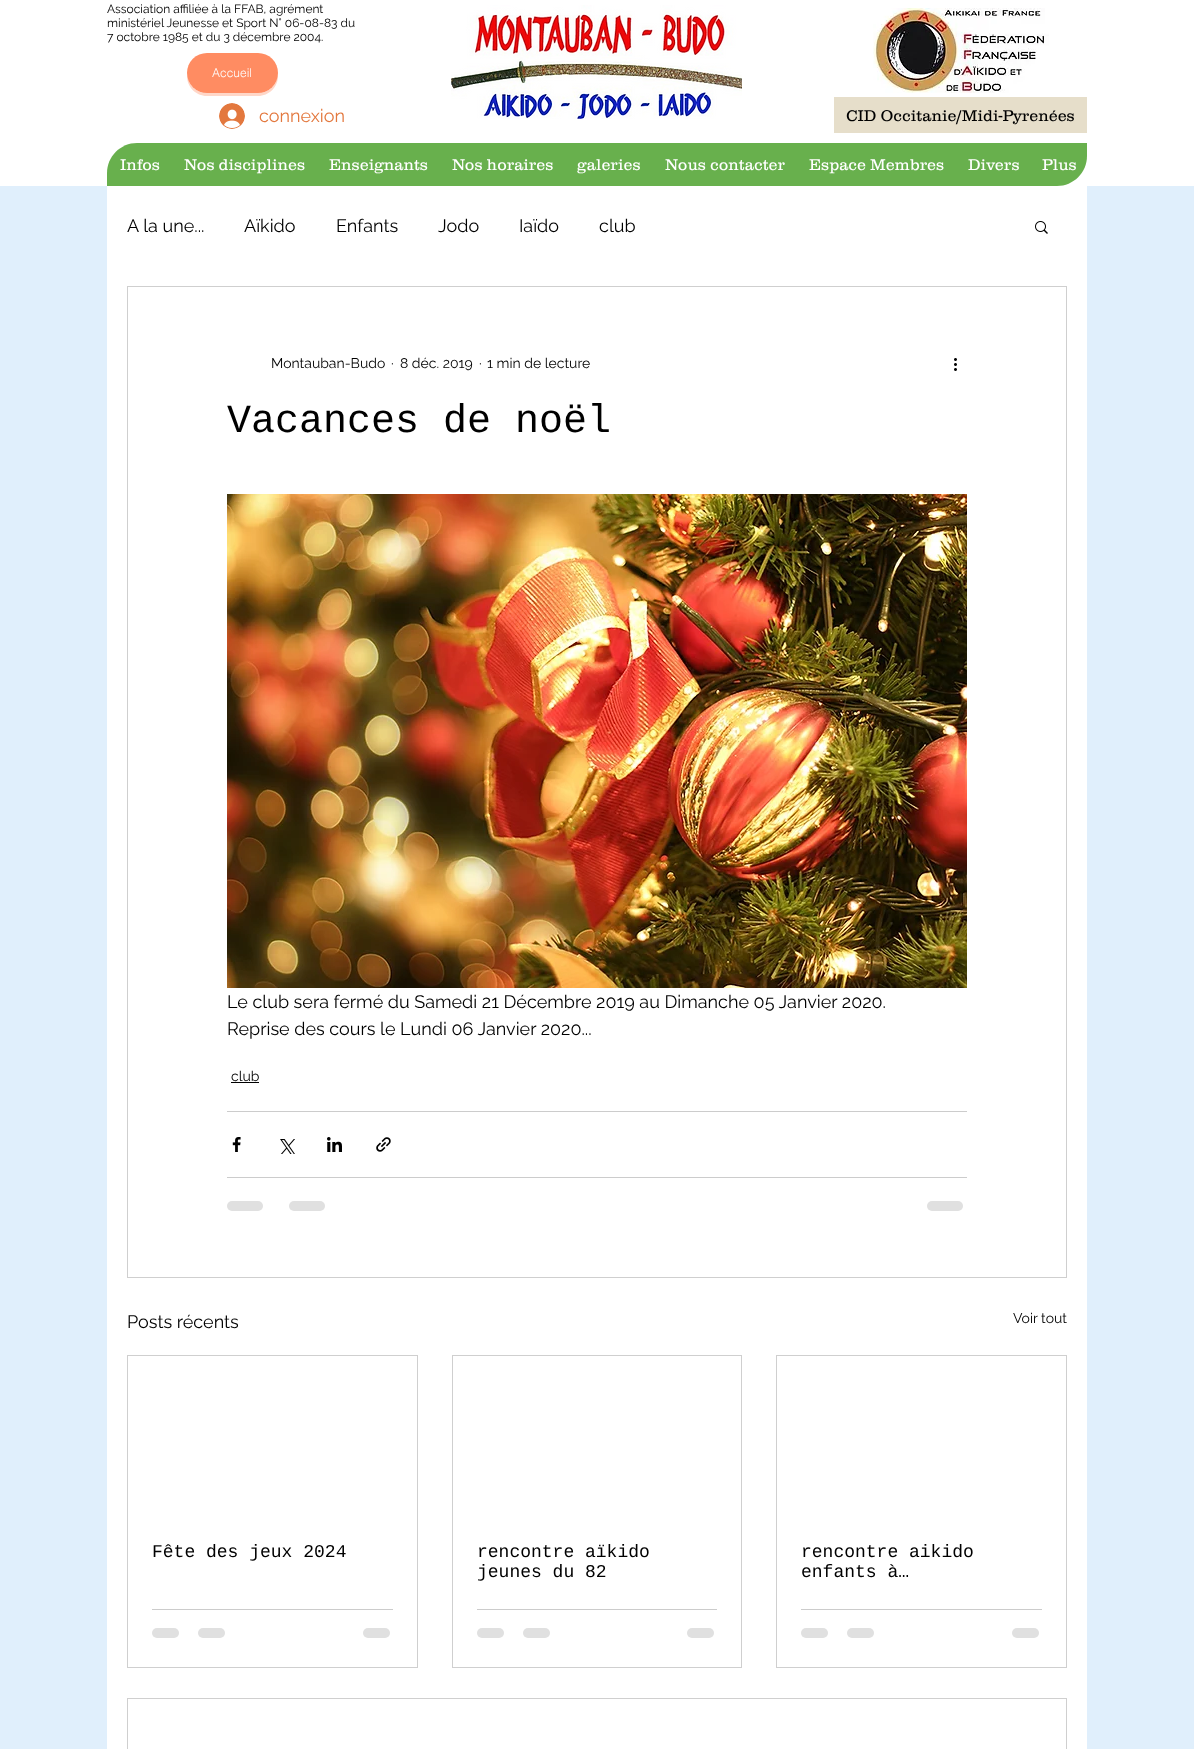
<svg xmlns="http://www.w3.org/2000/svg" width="1194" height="1749">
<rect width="100%" height="100%" fill="#e0effc"/>
<rect width="1194" height="186" fill="#fff"/>
<text x="107" y="13" style="font-family:Raleway;font-size:12px;fill:#000">Association affiliée à la FFAB, agrément</text>
<text x="107" y="27" style="font-family:Raleway;font-size:12px;fill:#000">ministériel Jeunesse et Sport N° 06-08-83 du</text>
<text x="107" y="41" style="font-family:Raleway;font-size:12px;fill:#000">7 octobre 1985 et du 3 décembre 2004.</text>
<image x="451" y="5" width="291" height="114" href="media/1.png"/>
<image x="873" y="8" width="176" height="85" href="media/2.png"/>
<path d="M187 74v2c0 11 9 20 20 20h51c11 0 20-9 20-20v-2c-1 11-9 19-20 19h-51c-11 0-19-8-20-19z" fill="#ffd7c8"/>
<rect x="187" y="53" width="91" height="40" rx="20" fill="#ff8c62"/>
<text x="212" y="77" style="font-family:helvetica;font-size:12px;font-weight:300;fill:#fff">Accueil</text>
<image x="219" y="103" width="26" height="26" href="media/3.png"/>
<text x="259" y="122" style="font-family:Raleway;font-size:18px;fill:#e3783e">connexion</text>
<rect x="834" y="97" width="253" height="36" fill="#e6deca"/>
<text x="846" y="121" style="font-family:'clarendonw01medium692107';font-size:16px;font-weight:300;fill:#000">CID Occitanie/Midi-Pyrenées</text>
<path d="M137 143h950v13c0 16.5-13.5 30-30 30h-950v-13c0-16.5 13.5-30 30-30z" fill="#68b04d"/>
<text x="120" y="170" style="font-family:'clarendonw01medium692107';font-size:16px;font-weight:300;fill:#fff">Infos</text>
<text x="184" y="170" style="font-family:'clarendonw01medium692107';font-size:16px;font-weight:300;fill:#fff">Nos disciplines</text>
<text x="329" y="170" style="font-family:'clarendonw01medium692107';font-size:16px;font-weight:300;fill:#fff">Enseignants</text>
<text x="452" y="170" style="font-family:'clarendonw01medium692107';font-size:16px;font-weight:300;fill:#fff">Nos horaires</text>
<text x="577" y="170" style="font-family:'clarendonw01medium692107';font-size:16px;font-weight:300;fill:#fff">galeries</text>
<text x="665" y="170" style="font-family:'clarendonw01medium692107';font-size:16px;font-weight:300;fill:#fff">Nous contacter</text>
<text x="809" y="170" style="font-family:'clarendonw01medium692107';font-size:16px;font-weight:300;fill:#fff">Espace Membres</text>
<text x="968" y="170" style="font-family:'clarendonw01medium692107';font-size:16px;font-weight:300;fill:#fff">Divers</text>
<text x="1042" y="170" style="font-family:'clarendonw01medium692107';font-size:16px;font-weight:300;fill:#fff">Plus</text>
<rect x="107" y="186" width="980" height="1563" fill="#fff"/>
<text x="127" y="232" style="font-family:Raleway;font-size:18px;fill:#000">A la une...</text>
<text x="244" y="232" style="font-family:Raleway;font-size:18px;fill:#000">Aïkido</text>
<text x="336" y="232" style="font-family:Raleway;font-size:18px;fill:#000">Enfants</text>
<text x="438" y="232" style="font-family:Raleway;font-size:18px;fill:#000">Jodo</text>
<text x="519" y="232" style="font-family:Raleway;font-size:18px;fill:#000">Iaïdo</text>
<text x="599" y="232" style="font-family:Raleway;font-size:18px;fill:#000">club</text>
<image x="1035" y="221" width="13" height="13" href="media/4.png"/>
<rect x="127.5" y="286.5" width="939" height="991" fill="none" stroke="#cfcfcf"/>
<text x="271" y="368" style="font-family:Raleway;font-size:14px;fill:#000">Montauban-Budo</text>
<text x="391" y="368" style="font-family:Raleway;font-size:14px;fill:#000">·</text>
<text x="400" y="368" style="font-family:Raleway;font-size:14px;fill:#000">8 déc. 2019</text>
<text x="479" y="368" style="font-family:Raleway;font-size:14px;fill:#000">·</text>
<text x="487" y="368" style="font-family:Raleway;font-size:14px;fill:#000">1 min de lecture</text>
<image x="954" y="358" width="3" height="13" href="media/5.png"/>
<text x="227" y="432" style="font-family:Liberation Mono;font-size:40px;fill:#000">Vacances de noël</text>
<image x="227" y="494" width="740" height="494" href="media/6.png"/>
<text x="227" y="1008" style="font-family:Raleway;font-size:18px;fill:#000">Le club sera fermé du Samedi 21 Décembre 2019 au Dimanche 05 Janvier 2020.</text>
<text x="227" y="1035" style="font-family:Raleway;font-size:18px;fill:#000">Reprise des cours le Lundi 06 Janvier 2020...</text>
<text x="231" y="1081" style="font-family:Raleway;font-size:14px;fill:#000">club</text>
<rect x="231" y="1082" width="28" height="1" fill="#000"/>
<rect x="227" y="1111" width="740" height="1" fill="#ccc"/>
<image x="232" y="1137" width="9" height="15" href="media/7.png"/>
<image x="280" y="1139" width="15" height="15" href="media/8.png"/>
<image x="327" y="1137" width="15" height="15" href="media/9.png"/>
<image x="376" y="1137" width="15" height="15" href="media/10.png"/>
<rect x="227" y="1177" width="740" height="1" fill="#ccc"/>
<rect x="227" y="1201" width="36" height="10" rx="5" fill="#e0e0e0"/>
<rect x="289" y="1201" width="36" height="10" rx="5" fill="#e0e0e0"/>
<rect x="927" y="1201" width="36" height="10" rx="5" fill="#e0e0e0"/>
<text x="127" y="1328" style="font-family:Raleway;font-size:18px;fill:#000">Posts récents</text>
<text x="1013" y="1323" style="font-family:Raleway;font-size:14px;fill:#000">Voir tout</text>
<rect x="127.5" y="1355.5" width="290" height="312" fill="none" stroke="#cfcfcf"/>
<text x="152" y="1557" style="font-family:Liberation Mono;font-size:18px;fill:#000">Fête des jeux 2024</text>
<rect x="152" y="1609" width="241" height="1" fill="#ccc"/>
<rect x="152" y="1628" width="27" height="10" rx="5" fill="#e0e0e0"/>
<rect x="198" y="1628" width="27" height="10" rx="5" fill="#e0e0e0"/>
<rect x="363" y="1628" width="27" height="10" rx="5" fill="#e0e0e0"/>
<rect x="452.5" y="1355.5" width="289" height="312" fill="none" stroke="#cfcfcf"/>
<text x="477" y="1557" style="font-family:Liberation Mono;font-size:18px;fill:#000">rencontre aïkido</text>
<text x="477" y="1577" style="font-family:Liberation Mono;font-size:18px;fill:#000">jeunes du 82</text>
<rect x="477" y="1609" width="240" height="1" fill="#ccc"/>
<rect x="477" y="1628" width="27" height="10" rx="5" fill="#e0e0e0"/>
<rect x="523" y="1628" width="27" height="10" rx="5" fill="#e0e0e0"/>
<rect x="687" y="1628" width="27" height="10" rx="5" fill="#e0e0e0"/>
<rect x="776.5" y="1355.5" width="290" height="312" fill="none" stroke="#cfcfcf"/>
<text x="801" y="1557" style="font-family:Liberation Mono;font-size:18px;fill:#000">rencontre aikido</text>
<text x="801" y="1577" style="font-family:Liberation Mono;font-size:18px;fill:#000">enfants à…</text>
<rect x="801" y="1609" width="241" height="1" fill="#ccc"/>
<rect x="801" y="1628" width="27" height="10" rx="5" fill="#e0e0e0"/>
<rect x="847" y="1628" width="27" height="10" rx="5" fill="#e0e0e0"/>
<rect x="1012" y="1628" width="27" height="10" rx="5" fill="#e0e0e0"/>
<rect x="127.5" y="1698.5" width="939" height="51" fill="none" stroke="#cfcfcf"/>
</svg>
